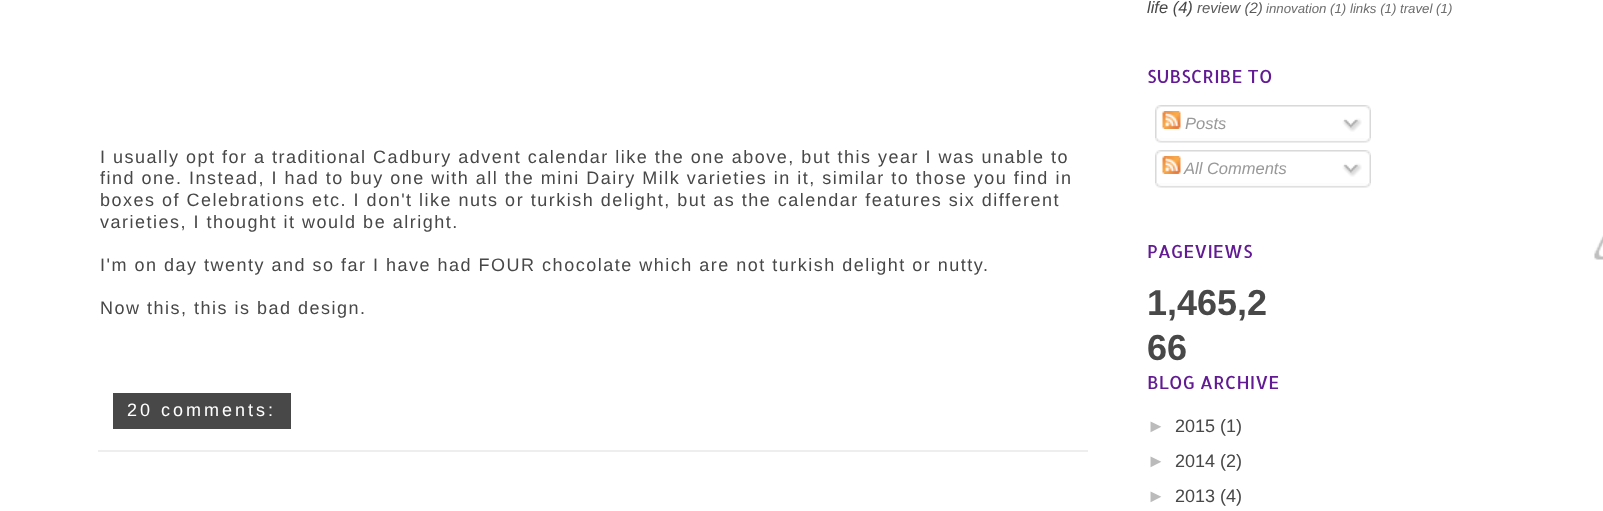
<svg xmlns="http://www.w3.org/2000/svg" width="1603" height="511">
<rect width="100%" height="100%" fill="#fff"/>
<image x="1594" y="235" width="9" height="25" href="media/1.png"/>
<text x="100" y="163" style="font-family:Liberation Sans;font-size:18px;letter-spacing:1.5px;fill:#484848">I usually opt for a traditional Cadbury advent calendar like the one above, but this year I was unable to</text>
<text x="100" y="184" style="font-family:Liberation Sans;font-size:18px;letter-spacing:1.5px;fill:#484848">find one. Instead, I had to buy one with all the mini Dairy Milk varieties in it, similar to those you find in</text>
<text x="100" y="206" style="font-family:Liberation Sans;font-size:18px;letter-spacing:1.5px;fill:#484848">boxes of Celebrations etc. I don't like nuts or turkish delight, but as the calendar features six different</text>
<text x="100" y="228" style="font-family:Liberation Sans;font-size:18px;letter-spacing:1.5px;fill:#484848">varieties, I thought it would be alright.</text>
<text x="100" y="271" style="font-family:Liberation Sans;font-size:18px;letter-spacing:1.5px;fill:#484848">I'm on day twenty and so far I have had FOUR chocolate which are not turkish delight or nutty.</text>
<text x="100" y="314" style="font-family:Liberation Sans;font-size:18px;letter-spacing:1.5px;fill:#484848">Now this, this is bad design.</text>
<rect x="98" y="450" width="990" height="2" fill="#eee"/>
<rect x="113" y="393" width="178" height="36" fill="#484848"/>
<text x="127" y="416" style="font-family:Liberation Sans;font-size:18px;letter-spacing:3px;fill:#fff">20 comments:</text>
<text x="1147" y="13" style="font-family:Liberation Sans;font-size:16.5px;font-style:italic;fill:#484848">life (4)</text>
<text x="1197" y="13" style="font-family:Liberation Sans;font-size:15px;font-style:italic;fill:#5a5a5a">review (2)</text>
<text x="1266" y="13" style="font-family:Liberation Sans;font-size:13.25px;font-style:italic;fill:#6d6d6d">innovation (1) links (1) travel (1)</text>
<text x="1147" y="83" style="font-family:Allerta;font-size:18px;fill:#631b94">SUBSCRIBE TO</text>
<image x="1155" y="105" width="216" height="33" href="media/2.png"/>
<image x="1162" y="111" width="19" height="18" href="media/3.png"/>
<text x="1185" y="129" style="font-family:Liberation Sans;font-size:16.5px;font-style:italic;fill:#999">Posts</text>
<image x="1342" y="118" width="20" height="14" href="media/4.png"/>
<image x="1155" y="138" width="216" height="5" href="media/5.png"/>
<image x="1155" y="150" width="216" height="33" href="media/2.png"/>
<image x="1162" y="156" width="19" height="18" href="media/3.png"/>
<text x="1184" y="174" style="font-family:Liberation Sans;font-size:16.5px;font-style:italic;fill:#999">All Comments</text>
<image x="1342" y="163" width="20" height="14" href="media/4.png"/>
<image x="1155" y="183" width="216" height="5" href="media/5.png"/>
<text x="1147" y="258" style="font-family:Allerta;font-size:18px;fill:#631b94">PAGEVIEWS</text>
<text x="1147" y="315" style="font-family:Liberation Sans;font-size:36px;font-weight:bold;fill:#484848">1,465,2</text>
<text x="1147" y="360" style="font-family:Liberation Sans;font-size:36px;font-weight:bold;fill:#484848">66</text>
<text x="1147" y="389" style="font-family:Allerta;font-size:18px;fill:#631b94">BLOG ARCHIVE</text>
<text x="1147" y="432" style="font-family:Liberation Sans;font-size:18px;fill:#bbb">►</text>
<text x="1175" y="432" style="font-family:Liberation Sans;font-size:18px;fill:#484848">2015 (1)</text>
<text x="1147" y="467" style="font-family:Liberation Sans;font-size:18px;fill:#bbb">►</text>
<text x="1175" y="467" style="font-family:Liberation Sans;font-size:18px;fill:#484848">2014 (2)</text>
<text x="1147" y="502" style="font-family:Liberation Sans;font-size:18px;fill:#bbb">►</text>
<text x="1175" y="502" style="font-family:Liberation Sans;font-size:18px;fill:#484848">2013 (4)</text>
</svg>
